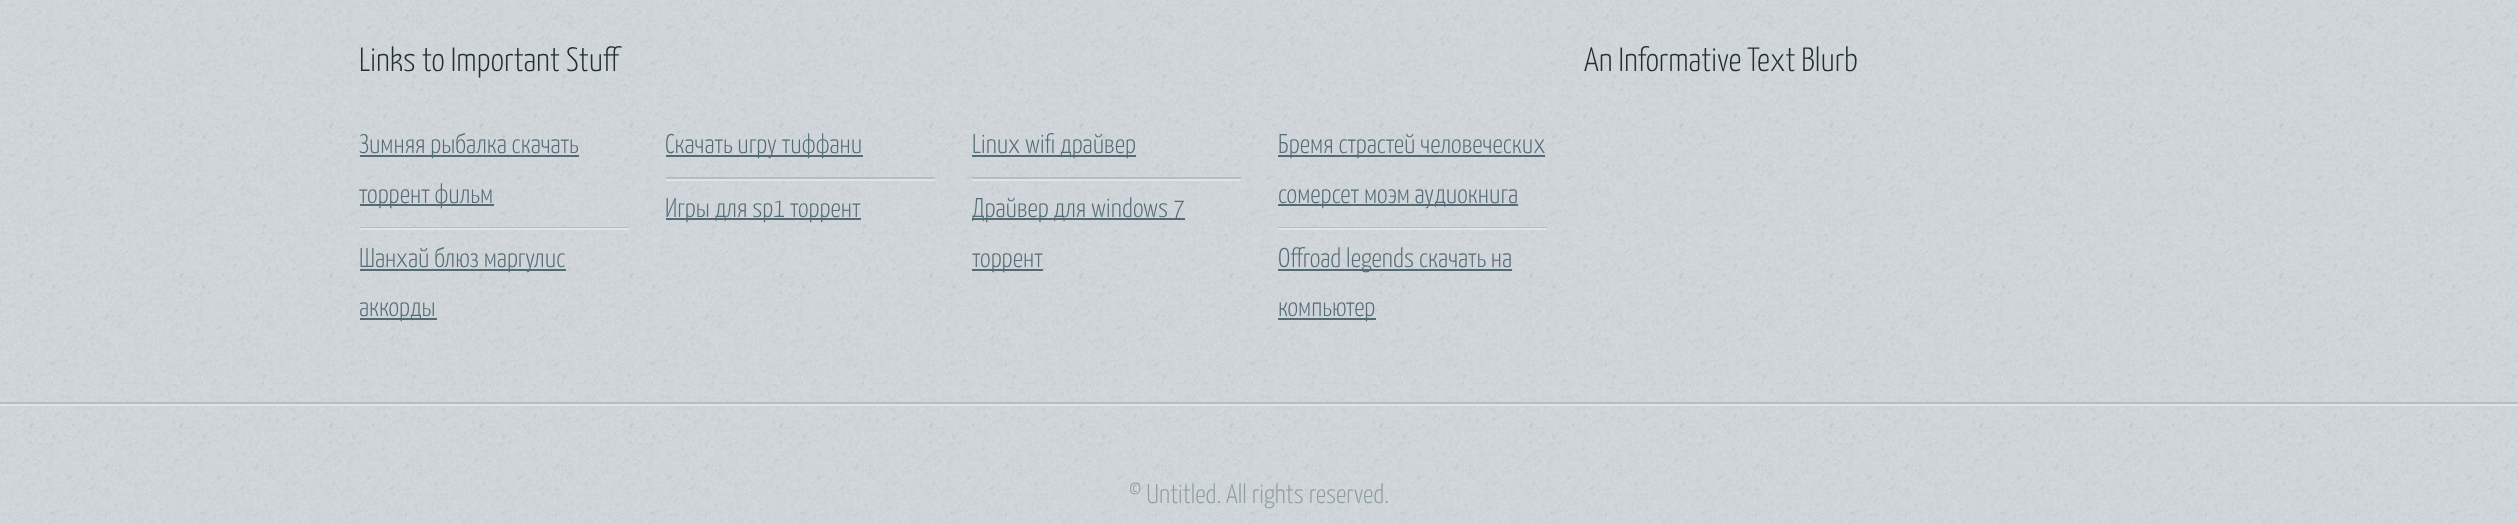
<svg xmlns="http://www.w3.org/2000/svg" width="2518" height="523">
<rect width="100%" height="100%" fill="#fff"/>
<image x="0" y="0" width="2518" height="523" href="media/1.png"/>
<text x="359" y="71" style="font-family:Yanone Kaffeesatz;font-size:33.75px;font-weight:300;fill:#212f35">Links to Important Stuff</text>
<rect x="360" y="227" width="269" height="1" fill="#b5bec3"/>
<rect x="360" y="155" width="219" height="2" fill="#546b76"/>
<text x="359" y="153" style="font-family:Yanone Kaffeesatz;font-size:27px;font-weight:300;fill:#546b76">Зимняя рыбалка скачать</text>
<rect x="360" y="204" width="134" height="2" fill="#546b76"/>
<text x="359" y="203" style="font-family:Yanone Kaffeesatz;font-size:27px;font-weight:300;fill:#546b76">торрент фильм</text>
<rect x="360" y="228" width="269" height="2" fill="#e0e4e6"/>
<rect x="360" y="269" width="206" height="2" fill="#546b76"/>
<text x="359" y="267" style="font-family:Yanone Kaffeesatz;font-size:27px;font-weight:300;fill:#546b76">Шанхай блюз маргулис</text>
<rect x="360" y="318" width="77" height="2" fill="#546b76"/>
<text x="359" y="316" style="font-family:Yanone Kaffeesatz;font-size:27px;font-weight:300;fill:#546b76">аккорды</text>
<rect x="666" y="177" width="269" height="2" fill="#b5bec3"/>
<rect x="666" y="155" width="197" height="2" fill="#546b76"/>
<text x="665" y="153" style="font-family:Yanone Kaffeesatz;font-size:27px;font-weight:300;fill:#546b76">Скачать игру тиффани</text>
<rect x="666" y="179" width="269" height="2" fill="#e0e4e6"/>
<rect x="666" y="218" width="195" height="2" fill="#546b76"/>
<text x="665" y="217" style="font-family:Yanone Kaffeesatz;font-size:27px;font-weight:300;fill:#546b76">Игры для sp1 торрент</text>
<rect x="972" y="177" width="269" height="2" fill="#b5bec3"/>
<rect x="972" y="155" width="164" height="2" fill="#546b76"/>
<text x="972" y="153" style="font-family:Yanone Kaffeesatz;font-size:27px;font-weight:300;fill:#546b76">Linux wifi драйвер</text>
<rect x="972" y="179" width="269" height="2" fill="#e0e4e6"/>
<rect x="972" y="218" width="213" height="2" fill="#546b76"/>
<text x="972" y="217" style="font-family:Yanone Kaffeesatz;font-size:27px;font-weight:300;fill:#546b76">Драйвер для windows 7</text>
<rect x="972" y="269" width="71" height="2" fill="#546b76"/>
<text x="972" y="267" style="font-family:Yanone Kaffeesatz;font-size:27px;font-weight:300;fill:#546b76">торрент</text>
<rect x="1278" y="227" width="269" height="1" fill="#b5bec3"/>
<rect x="1278" y="155" width="267" height="2" fill="#546b76"/>
<text x="1278" y="153" style="font-family:Yanone Kaffeesatz;font-size:27px;font-weight:300;fill:#546b76">Бремя страстей человеческих</text>
<rect x="1278" y="204" width="240" height="2" fill="#546b76"/>
<text x="1278" y="203" style="font-family:Yanone Kaffeesatz;font-size:27px;font-weight:300;fill:#546b76">сомерсет моэм аудиокнига</text>
<rect x="1278" y="228" width="269" height="2" fill="#e0e4e6"/>
<rect x="1278" y="269" width="234" height="2" fill="#546b76"/>
<text x="1278" y="267" style="font-family:Yanone Kaffeesatz;font-size:27px;font-weight:300;fill:#546b76">Offroad legends скачать на</text>
<rect x="1278" y="318" width="98" height="2" fill="#546b76"/>
<text x="1278" y="316" style="font-family:Yanone Kaffeesatz;font-size:27px;font-weight:300;fill:#546b76">компьютер</text>
<text x="1584" y="71" style="font-family:Yanone Kaffeesatz;font-size:33.75px;font-weight:300;fill:#212f35">An Informative Text Blurb</text>
<rect y="404" width="2518" height="2" fill="#e0e4e7"/>
<rect y="402" width="2518" height="2" fill="#b5bec3"/>
<text x="1129" y="503" style="font-family:Yanone Kaffeesatz;font-size:27px;font-weight:300;fill:#8d9ca3">© Untitled. All rights reserved.</text>
</svg>
